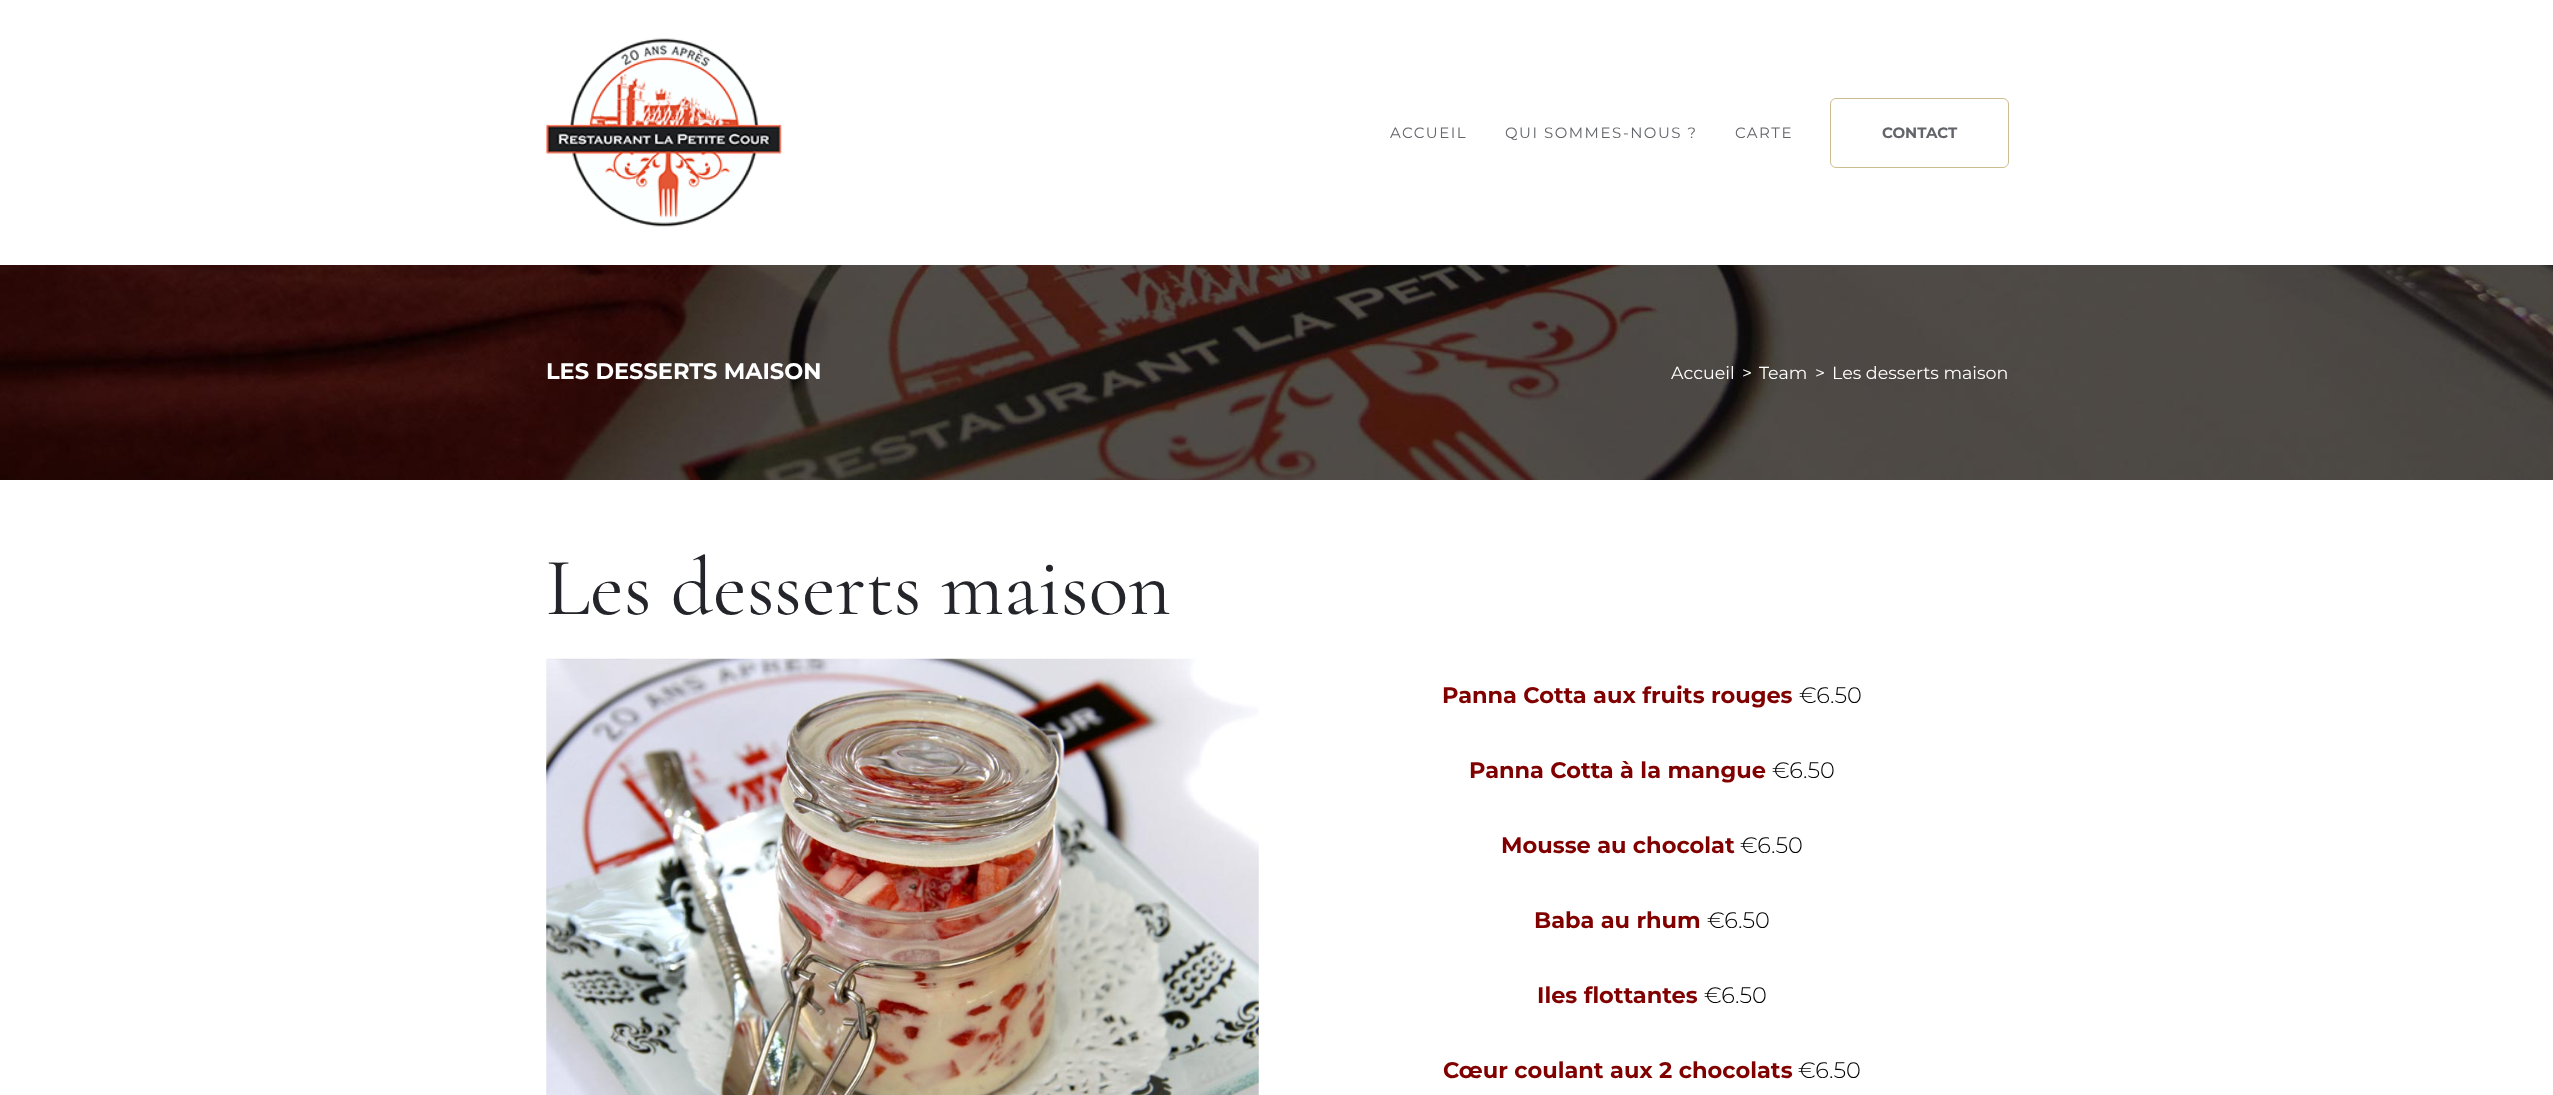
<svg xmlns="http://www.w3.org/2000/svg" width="2553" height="1095">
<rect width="100%" height="100%" fill="#fff"/>
<image x="546" y="38" width="236" height="189" href="media/1.png"/>
<text x="1390" y="138" style="font-family:Montserrat;font-size:15px;letter-spacing:1.5px;fill:#64656a">ACCUEIL</text>
<text x="1505" y="138" style="font-family:Montserrat;font-size:15px;letter-spacing:1.5px;fill:#64656a">QUI SOMMES-NOUS ?</text>
<text x="1735" y="138" style="font-family:Montserrat;font-size:15px;letter-spacing:1.5px;fill:#64656a">CARTE</text>
<rect x="1830.5" y="98.5" width="178" height="69" rx="5.5" fill="none" stroke="#ccbc90"/>
<text x="1882" y="138" style="font-family:Montserrat;font-size:15px;font-weight:bold;fill:#64656a">CONTACT</text>
<image x="0" y="265" width="2553" height="215" href="media/2.png"/>
<text x="546" y="379" style="font-family:Montserrat;font-size:22.5px;font-weight:bold;fill:#fff">LES DESSERTS MAISON</text>
<text x="1671" y="379" style="font-family:Montserrat;font-size:17.5px;fill:#fff">Accueil</text>
<text x="1742" y="379" style="font-family:Montserrat;font-size:17.5px;fill:#fff">&gt;</text>
<text x="1759" y="379" style="font-family:Montserrat;font-size:17.5px;fill:#fff">Team</text>
<text x="1815" y="379" style="font-family:Montserrat;font-size:17.5px;fill:#fff">&gt;</text>
<text x="1832" y="379" style="font-family:Montserrat;font-size:17.5px;fill:#fff">Les desserts maison</text>
<text x="546" y="614" style="font-family:Cormorant Garamond;font-size:82.5px;fill:#24252b">Les desserts maison</text>
<image x="546" y="658" width="713" height="437" href="media/3.png"/>
<text x="1442" y="703" style="font-family:Montserrat;font-size:22.5px;font-weight:bold;fill:#800000">Panna Cotta aux fruits rouges</text>
<text x="1799" y="703" style="font-family:Montserrat;font-size:22.5px;font-weight:300;fill:#000">€6.50</text>
<text x="1469" y="778" style="font-family:Montserrat;font-size:22.5px;font-weight:bold;fill:#800000">Panna Cotta à la mangue</text>
<text x="1772" y="778" style="font-family:Montserrat;font-size:22.5px;font-weight:300;fill:#000">€6.50</text>
<text x="1501" y="853" style="font-family:Montserrat;font-size:22.5px;font-weight:bold;fill:#800000">Mousse au chocolat</text>
<text x="1740" y="853" style="font-family:Montserrat;font-size:22.5px;font-weight:300;fill:#000">€6.50</text>
<text x="1534" y="928" style="font-family:Montserrat;font-size:22.5px;font-weight:bold;fill:#800000">Baba au rhum</text>
<text x="1707" y="928" style="font-family:Montserrat;font-size:22.5px;font-weight:300;fill:#000">€6.50</text>
<text x="1537" y="1003" style="font-family:Montserrat;font-size:22.5px;font-weight:bold;fill:#800000">Iles flottantes</text>
<text x="1704" y="1003" style="font-family:Montserrat;font-size:22.5px;font-weight:300;fill:#000">€6.50</text>
<text x="1443" y="1078" style="font-family:Montserrat;font-size:22.5px;font-weight:bold;fill:#800000">Cœur coulant aux 2 chocolats</text>
<text x="1798" y="1078" style="font-family:Montserrat;font-size:22.5px;font-weight:300;fill:#000">€6.50</text>
</svg>
